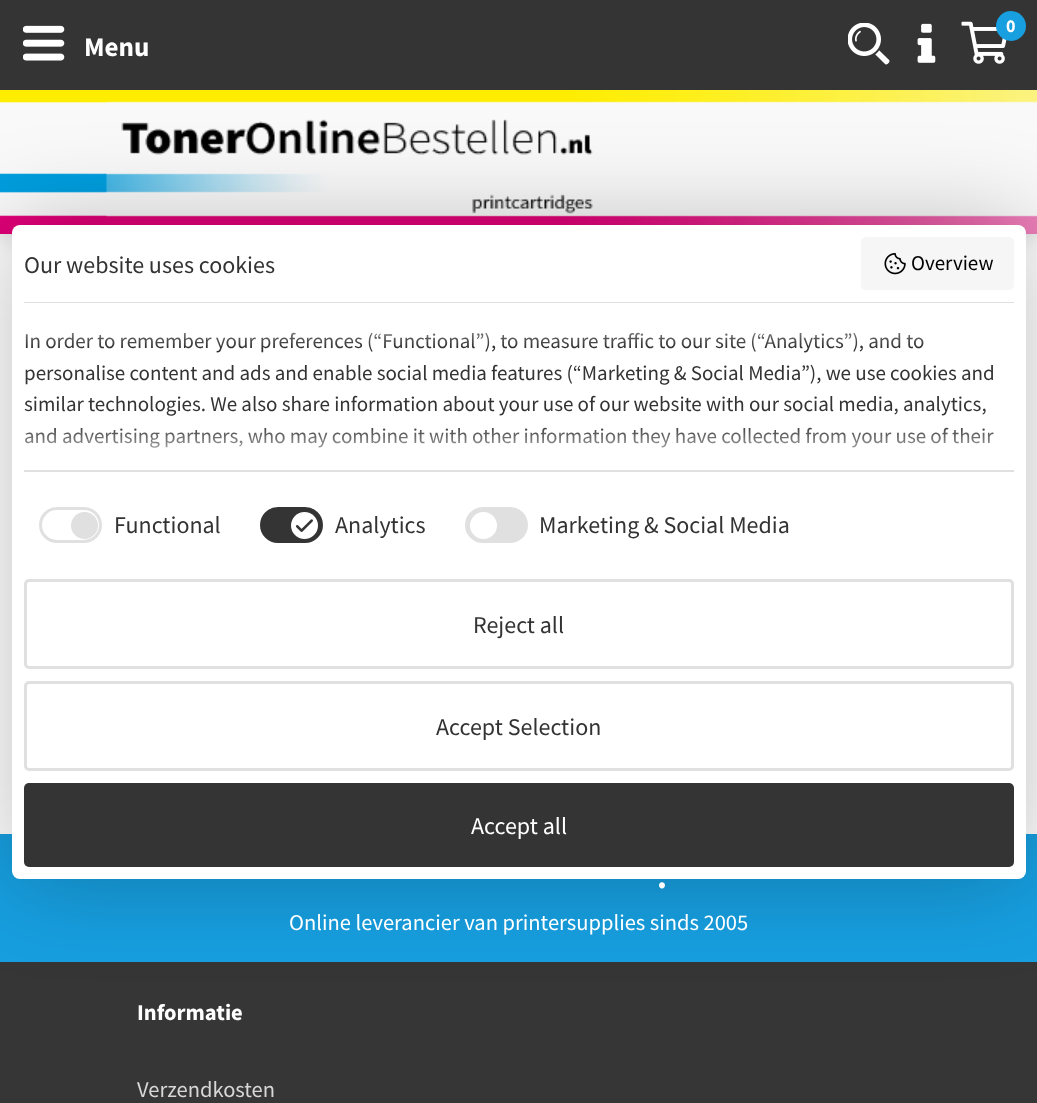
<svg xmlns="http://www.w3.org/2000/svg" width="1037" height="1103">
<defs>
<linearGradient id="g1" gradientUnits="userSpaceOnUse" x1="519" y1="347" x2="519" y2="302"><stop offset="0" stop-color="#fff" stop-opacity="0"/><stop offset="1" stop-color="#fff"/></linearGradient>
<linearGradient id="g2" gradientUnits="userSpaceOnUse" x1="519" y1="424" x2="519" y2="470"><stop offset="0" stop-color="#fff" stop-opacity="0"/><stop offset="1" stop-color="#fff"/></linearGradient>
</defs>
<rect width="100%" height="100%" fill="#fff"/>
<rect x="3" y="87" width="1032" height="144" fill="#0000004d" filter="blur(15px)"/>
<rect width="1037" height="90" fill="#343434"/>
<image x="23" y="25" width="42" height="36" href="media/1.png"/>
<text x="84" y="56" style="font-family:Source Sans Pro;font-size:27px;font-weight:bold;fill:#fff">Menu</text>
<image x="848" y="23" width="42" height="42" href="media/2.png"/>
<image x="917" y="23" width="19" height="40" href="media/3.png"/>
<image x="961" y="21" width="46" height="43" href="media/4.png"/>
<circle cx="1011" cy="26" r="15" fill="#179fe0"/>
<text x="1006" y="32" style="font-family:Source Sans Pro;font-size:18px;font-weight:bold;fill:#fff">0</text>
<rect y="90" width="1037" height="144" fill="#f9f9f9"/>
<image x="0" y="90" width="1037" height="144" href="media/5.png"/>
<image x="0" y="101" width="107" height="116" href="media/6.png"/>
<image x="121" y="119" width="472" height="95" href="media/7.png"/>
<rect y="834" width="1037" height="128" fill="#179fe0"/>
<rect y="962" width="1037" height="141" fill="#363636"/>
<rect x="12" y="225" width="1014" height="654" rx="8" fill="#00000040" filter="blur(48px)"/>
<rect x="12" y="225" width="1014" height="654" rx="8" fill="#fff"/>
<text x="24" y="273" style="font-family:Source Sans Pro;font-size:24px;fill:#333">Our website uses cookies</text>
<rect x="861" y="237" width="153" height="53" rx="5" fill="#f6f6f6"/>
<image x="884" y="253" width="22" height="22" href="media/8.png"/>
<text x="911" y="270" style="font-family:Source Sans Pro;font-size:21px;fill:#000">Overview</text>
<rect x="24" y="302" width="990" height="2" fill="#e0e0e0"/>
<rect x="24" y="470" width="990" height="2" fill="#e0e0e0"/>
<text x="24" y="348" style="font-family:Source Sans Pro;font-size:21px;fill:#333">In order to remember your preferences (“Functional”), to measure traffic to our site (“Analytics”), and to</text>
<rect x="24" y="303" width="990" height="43" fill="url(#g1)"/>
<text x="24" y="380" style="font-family:Source Sans Pro;font-size:21px;fill:#333">personalise content and ads and enable social media features (“Marketing &amp; Social Media”), we use cookies and</text>
<text x="24" y="411" style="font-family:Source Sans Pro;font-size:21px;fill:#333">similar technologies. We also share information about your use of our website with our social media, analytics,</text>
<text x="24" y="443" style="font-family:Source Sans Pro;font-size:21px;fill:#333">and advertising partners, who may combine it with other information they have collected from your use of their</text>
<rect x="25" y="427" width="969" height="21" fill="url(#g2)"/>
<rect x="40.5" y="508.5" width="60" height="33" rx="16.5" fill="none" stroke="#e0e0e0" stroke-width="3"/>
<circle cx="84.5" cy="525.5" r="13.5" fill="#e0e0e0"/>
<text x="114" y="533" style="font-family:Source Sans Pro;font-size:24px;fill:#333">Functional</text>
<rect x="261.5" y="508.5" width="60" height="33" rx="16.5" fill="#343434" stroke="#343434" stroke-width="3"/>
<circle cx="304.5" cy="525.5" r="13.5" fill="#fff"/>
<image x="295" y="519" width="18" height="13" href="media/9.png"/>
<text x="335" y="533" style="font-family:Source Sans Pro;font-size:24px;fill:#333">Analytics</text>
<rect x="466.5" y="508.5" width="60" height="33" rx="16.5" fill="#e0e0e0" stroke="#e0e0e0" stroke-width="3"/>
<circle cx="483.5" cy="525.5" r="13.5" fill="#fff"/>
<text x="539" y="533" style="font-family:Source Sans Pro;font-size:24px;fill:#333">Marketing &amp; Social Media</text>
<rect x="25.5" y="580.5" width="987" height="87" rx="3.5" fill="none" stroke="#e0e0e0" stroke-width="3"/>
<text x="473" y="633" style="font-family:Source Sans Pro;font-size:24px;fill:#333">Reject all</text>
<rect x="25.5" y="682.5" width="987" height="87" rx="3.5" fill="none" stroke="#e0e0e0" stroke-width="3"/>
<text x="436" y="735" style="font-family:Source Sans Pro;font-size:24px;fill:#333">Accept Selection</text>
<rect x="24" y="783" width="990" height="84" rx="5" fill="#343434"/>
<text x="471" y="834" style="font-family:Source Sans Pro;font-size:24px;fill:#fff">Accept all</text>
<text x="657" y="888" style="font-family:Source Sans Pro;font-size:33px;font-weight:bold;fill:#fff">.</text>
<text x="289" y="930" style="font-family:Source Sans Pro;font-size:22.5px;fill:#fff">Online leverancier van printersupplies sinds 2005</text>
<text x="137" y="1020" style="font-family:Source Sans Pro;font-size:22.5px;font-weight:bold;fill:#fff">Informatie</text>
<text x="137" y="1097" style="font-family:Source Sans Pro;font-size:22.5px;fill:#d7d7d7">Verzendkosten</text>
</svg>
